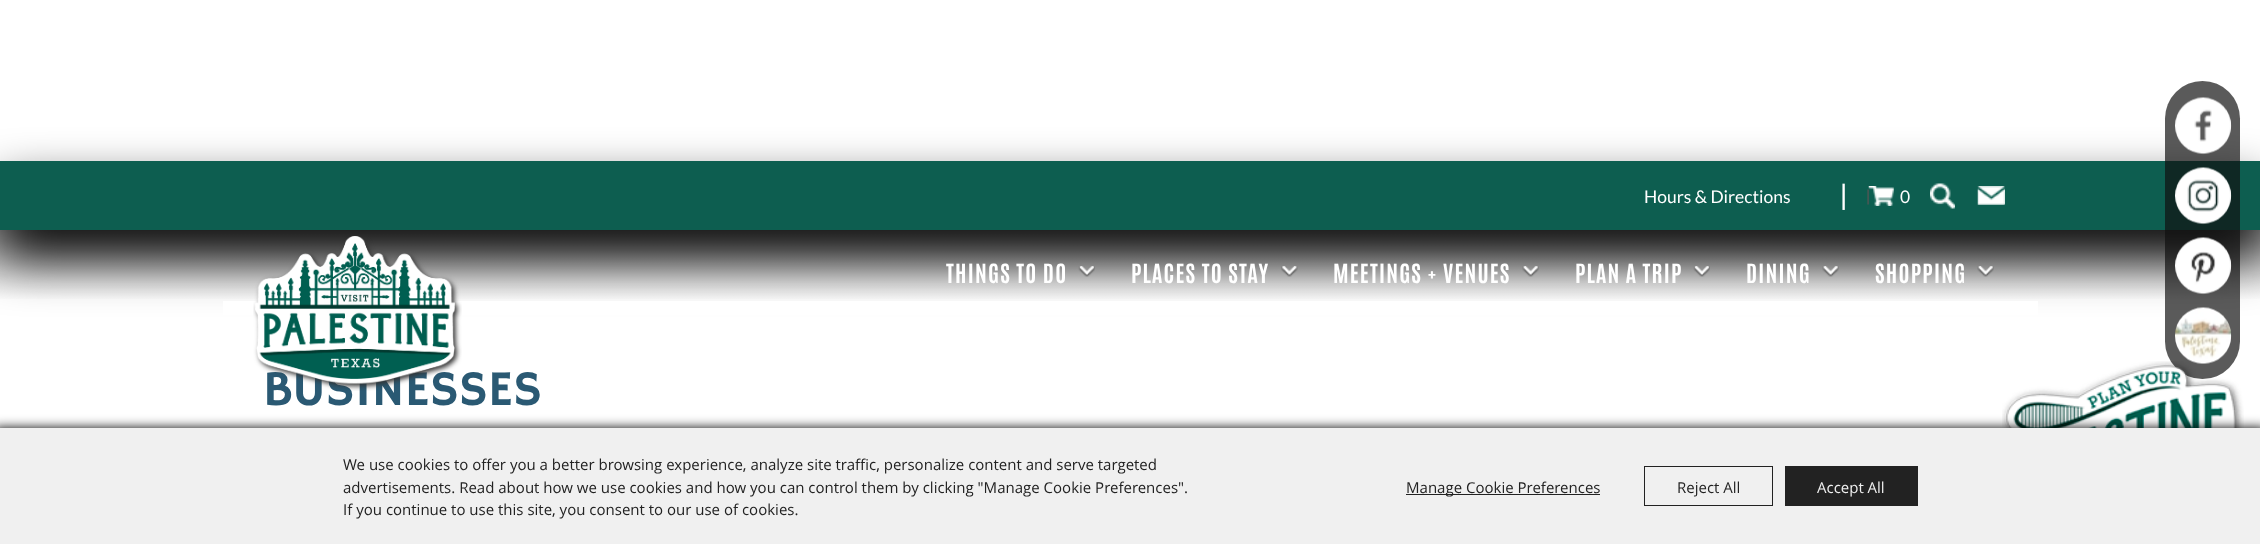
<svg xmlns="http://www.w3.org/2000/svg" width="2260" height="544">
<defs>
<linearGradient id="g1" gradientUnits="userSpaceOnUse" x1="1130" y1="161" x2="1130" y2="301"><stop offset="0" stop-color="#464646"/><stop offset="1" stop-color="#fff"/></linearGradient>
</defs>
<rect width="100%" height="100%" fill="#fff"/>
<rect y="230" width="2260" height="69" fill="url(#g1)"/>
<rect y="188" width="2260" height="68" fill="#040404" filter="blur(25.5px)"/>
<rect y="161" width="2260" height="69" fill="#0d5e50"/>
<text x="1644" y="203" style="font-family:Lato;font-size:17.5px;fill:#fff">Hours &amp; Directions</text>
<text x="1840" y="204" style="font-family:Liberation Sans;font-size:28px;fill:#fff">|</text>
<text x="1866" y="201" style="font-family:Liberation Sans;font-size:16px;fill:#565655">|</text>
<image x="1868" y="186" width="26" height="20" href="media/1.png"/>
<text x="1900" y="203" style="font-family:Lato;font-size:17.5px;fill:#fff">0</text>
<image x="1930" y="183" width="25" height="26" href="media/2.png"/>
<image x="1977" y="186" width="28" height="19" href="media/3.png"/>
<rect x="223" y="301" width="1815" height="14" fill="#fff"/>
<text x="263" y="405" style="font-family:Hammersmith One;font-size:50px;fill:#2a5973">BUSINESSES</text>
<image x="253" y="236" width="209" height="155" href="media/4.png"/>
<text x="946" y="283" style="font-family:Antonio;font-size:22.5px;font-weight:bold;letter-spacing:1.25px;fill:#fff">THINGS TO DO</text>
<image x="1078" y="266" width="17" height="11" href="media/5.png"/>
<text x="1131" y="283" style="font-family:Antonio;font-size:22.5px;font-weight:bold;letter-spacing:1.25px;fill:#fff">PLACES TO STAY</text>
<image x="1281" y="266" width="17" height="11" href="media/6.png"/>
<text x="1333" y="283" style="font-family:Antonio;font-size:22.5px;font-weight:bold;letter-spacing:1.25px;fill:#fff">MEETINGS + VENUES</text>
<image x="1522" y="266" width="17" height="11" href="media/7.png"/>
<text x="1575" y="283" style="font-family:Antonio;font-size:22.5px;font-weight:bold;letter-spacing:1.25px;fill:#fff">PLAN A TRIP</text>
<image x="1693" y="266" width="17" height="11" href="media/5.png"/>
<text x="1746" y="283" style="font-family:Antonio;font-size:22.5px;font-weight:bold;letter-spacing:1.25px;fill:#fff">DINING</text>
<image x="1822" y="266" width="17" height="11" href="media/7.png"/>
<text x="1875" y="283" style="font-family:Antonio;font-size:22.5px;font-weight:bold;letter-spacing:1.25px;fill:#fff">SHOPPING</text>
<image x="1977" y="266" width="17" height="11" href="media/7.png"/>
<rect x="2165" y="81" width="75" height="298" rx="37.5" fill="#101010b0"/>
<image x="2175" y="97" width="57" height="58" href="media/8.png"/>
<image x="2175" y="167" width="57" height="58" href="media/9.png"/>
<image x="2175" y="237" width="57" height="58" href="media/10.png"/>
<image x="2175" y="307" width="57" height="57" href="media/11.png"/>
<image x="2002" y="361" width="242" height="67" href="media/12.png"/>
<rect x="-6" y="428" width="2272" height="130" fill="#000" filter="blur(6px)"/>
<rect y="428" width="2260" height="116" fill="#f0f0f0"/>
<text x="343" y="470" style="font-family:Open Sans;font-size:15px;fill:#222">We use cookies to offer you a better browsing experience, analyze site traffic, personalize content and serve targeted</text>
<text x="343" y="493" style="font-family:Open Sans;font-size:15px;fill:#222">advertisements. Read about how we use cookies and how you can control them by clicking "Manage Cookie Preferences".</text>
<text x="343" y="515" style="font-family:Open Sans;font-size:15px;fill:#222">If you continue to use this site, you consent to our use of cookies.</text>
<rect x="1406" y="494" width="194" height="1" fill="#222"/>
<text x="1406" y="493" style="font-family:Open Sans;font-size:15px;fill:#222">Manage Cookie Preferences</text>
<rect x="1644.5" y="466.5" width="128" height="39" fill="none" stroke="#222"/>
<text x="1677" y="493" style="font-family:Open Sans;font-size:15px;fill:#222">Reject All</text>
<rect x="1785" y="466" width="133" height="40" fill="#222"/>
<text x="1817" y="493" style="font-family:Open Sans;font-size:15px;fill:#f0f0f0">Accept All</text>
</svg>
